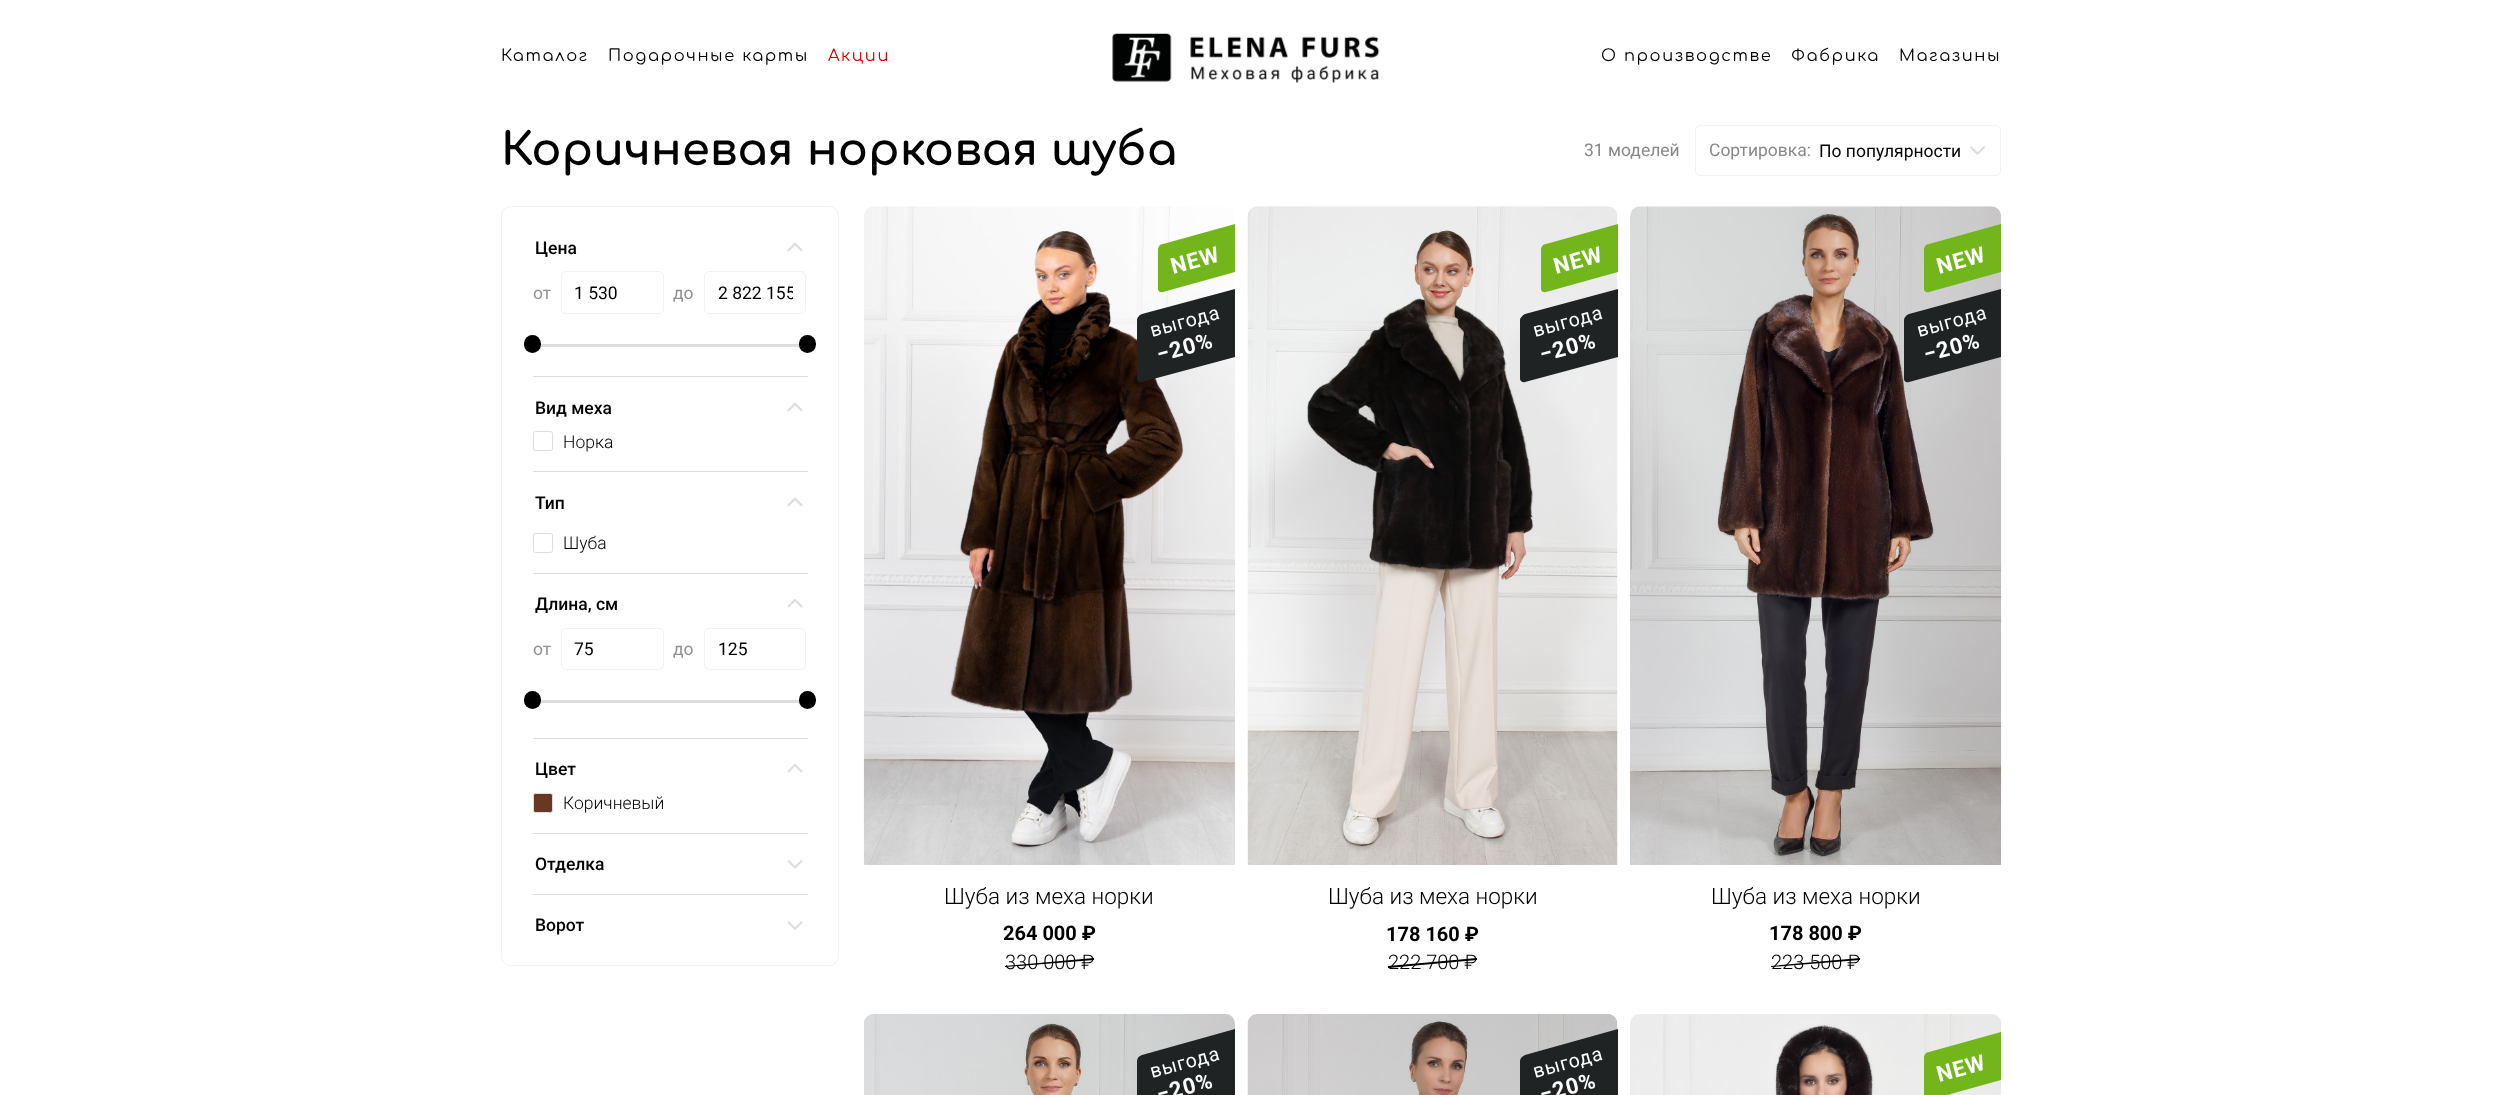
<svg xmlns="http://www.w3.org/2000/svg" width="2502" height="1095">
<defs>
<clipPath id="clip1"><rect x="718" y="283" width="75" height="20"/></clipPath>
</defs>
<rect width="100%" height="100%" fill="#fff"/>
<text x="501" y="61" style="font-family:Comfortaa;font-size:16.25px;letter-spacing:1.6px;fill:#000">Каталог</text>
<text x="608" y="61" style="font-family:Comfortaa;font-size:16.25px;letter-spacing:1.6px;fill:#000">Подарочные карты</text>
<text x="828" y="61" style="font-family:Comfortaa;font-size:16.25px;letter-spacing:1.6px;fill:#d90000">Акции</text>
<image x="1112" y="33" width="268" height="50" href="media/1.png"/>
<text x="1601" y="61" style="font-family:Comfortaa;font-size:16.25px;letter-spacing:1.6px;fill:#000">О производстве</text>
<text x="1791" y="61" style="font-family:Comfortaa;font-size:16.25px;letter-spacing:1.6px;fill:#000">Фабрика</text>
<text x="1899" y="61" style="font-family:Comfortaa;font-size:16.25px;letter-spacing:1.6px;fill:#000">Магазины</text>
<text x="501" y="165" style="font-family:Comfortaa;font-size:45px;font-weight:bold;fill:#000">Коричневая норковая шуба</text>
<text x="1584" y="156" style="font-family:Roboto;font-size:17.5px;fill:#888">31 моделей</text>
<rect x="1695.5" y="125.5" width="305" height="50" rx="4.5" fill="none" stroke="#f2f2f2"/>
<text x="1709" y="156" style="font-family:Roboto;font-size:17.5px;fill:#888">Сортировка:</text>
<text x="1819" y="157" style="font-family:Roboto;font-size:17.5px;fill:#000">По популярности</text>
<image x="1970" y="146" width="15" height="9" href="media/2.png"/>
<rect x="501.5" y="206.5" width="337" height="759" rx="9.5" fill="none" stroke="#f2f2f2"/>
<rect x="533" y="376" width="275" height="1" fill="#ddd"/>
<text x="535" y="254" style="font-family:Roboto;font-size:17.5px;font-weight:500;fill:#000">Цена</text>
<image x="787" y="242" width="16" height="10" href="media/3.png"/>
<text x="533" y="299" style="font-family:Roboto;font-size:17.5px;fill:#8f9191">от</text>
<rect x="561.5" y="271.5" width="102" height="42" rx="4.5" fill="none" stroke="#f2f2f2"/>
<text x="574" y="299" style="font-family:Roboto;font-size:17.5px;fill:#000">1 530</text>
<text x="673" y="299" style="font-family:Roboto;font-size:17.5px;fill:#8f9191">до</text>
<rect x="704.5" y="271.5" width="101" height="42" rx="4.5" fill="none" stroke="#f2f2f2"/>
<g clip-path="url(#clip1)">
<text x="718" y="299" style="font-family:Roboto;font-size:17.5px;fill:#000">2 822 155</text>
</g>
<rect x="533" y="344" width="275" height="3" fill="#ddd"/>
<rect x="524" y="335" width="17" height="18" rx="8.5" fill="#000"/>
<rect x="799" y="335" width="17" height="18" rx="8.5" fill="#000"/>
<rect x="533" y="471" width="275" height="1" fill="#ddd"/>
<text x="535" y="414" style="font-family:Roboto;font-size:17.5px;font-weight:500;fill:#000">Вид меха</text>
<image x="787" y="402" width="16" height="10" href="media/3.png"/>
<rect x="533.5" y="431.5" width="19" height="19" rx="2" fill="none" stroke="#ddd"/>
<text x="563" y="448" style="font-family:Roboto;font-size:17.5px;font-weight:300;fill:#000">Норка</text>
<rect x="533" y="573" width="275" height="1" fill="#ddd"/>
<text x="535" y="509" style="font-family:Roboto;font-size:17.5px;font-weight:500;fill:#000">Тип</text>
<image x="787" y="497" width="16" height="10" href="media/3.png"/>
<rect x="533.5" y="533.5" width="19" height="19" rx="2" fill="none" stroke="#ddd"/>
<text x="563" y="549" style="font-family:Roboto;font-size:17.5px;font-weight:300;fill:#000">Шуба</text>
<rect x="533" y="738" width="275" height="1" fill="#ddd"/>
<text x="535" y="610" style="font-family:Roboto;font-size:17.5px;font-weight:500;fill:#000">Длина, см</text>
<image x="787" y="599" width="16" height="9" href="media/4.png"/>
<text x="533" y="655" style="font-family:Roboto;font-size:17.5px;fill:#8f9191">от</text>
<rect x="561.5" y="628.5" width="102" height="41" rx="4.5" fill="none" stroke="#f2f2f2"/>
<text x="574" y="655" style="font-family:Roboto;font-size:17.5px;fill:#000">75</text>
<text x="673" y="655" style="font-family:Roboto;font-size:17.5px;fill:#8f9191">до</text>
<rect x="704.5" y="628.5" width="101" height="41" rx="4.5" fill="none" stroke="#f2f2f2"/>
<text x="718" y="655" style="font-family:Roboto;font-size:17.5px;fill:#000">125</text>
<rect x="533" y="700" width="275" height="3" fill="#ddd"/>
<rect x="524" y="691" width="17" height="18" rx="8.5" fill="#000"/>
<rect x="799" y="691" width="17" height="18" rx="8.5" fill="#000"/>
<rect x="533" y="833" width="275" height="1" fill="#ddd"/>
<text x="535" y="775" style="font-family:Roboto;font-size:17.5px;font-weight:500;fill:#000">Цвет</text>
<image x="787" y="764" width="16" height="9" href="media/4.png"/>
<rect x="533.5" y="793.5" width="19" height="19" rx="2" fill="#673923" stroke="#ddd"/>
<text x="563" y="809" style="font-family:Roboto;font-size:17.5px;font-weight:300;fill:#000">Коричневый</text>
<rect x="533" y="894" width="275" height="1" fill="#ddd"/>
<text x="535" y="870" style="font-family:Roboto;font-size:17.5px;font-weight:500;fill:#000">Отделка</text>
<image x="787" y="860" width="16" height="9" href="media/5.png"/>
<text x="535" y="931" style="font-family:Roboto;font-size:17.5px;font-weight:500;fill:#000">Ворот</text>
<image x="787" y="921" width="16" height="9" href="media/6.png"/>
<image x="863" y="206" width="372" height="659" href="media/7.png"/>
<path d="M1163 244l72-20v48l-72 20c-3 1-5-1-5-3v-39c0-3 2-6 5-6z" fill="#72b61c"/>
<text x="1173" y="274" transform="rotate(-15.1 1173 274)" style="font-family:Roboto;font-size:22px;font-weight:bold;letter-spacing:1px;fill:#fff">NEW</text>
<path d="M1142 314l93-25v68l-93 25c-3 1-5-1-5-3v-59c0-2 2-5 5-6z" fill="#1f2323"/>
<text x="1152" y="337" transform="rotate(-15.1 1152 337)" style="font-family:Roboto;font-size:19.5px;letter-spacing:0.75px;fill:#fff">выгода</text>
<text x="1159" y="362" transform="rotate(-15.1 1159 362)" style="font-family:Roboto;font-size:22px;font-weight:bold;letter-spacing:1px;fill:#fff">−20%</text>
<text x="944" y="904" style="font-family:Roboto;font-size:22.5px;font-weight:300;fill:#000">Шуба из меха норки</text>
<text x="1003" y="940" style="font-family:Roboto;font-size:20px;font-weight:bold;fill:#000">264 000 ₽</text>
<text x="1005" y="969" style="font-family:Roboto;font-size:20px;font-weight:300;fill:#000">330 000 ₽</text>
<path d="M1005 966l89-8v2l-89 7z" fill="#000"/>
<image x="1247" y="206" width="371" height="659" href="media/8.png"/>
<path d="M1546 244l72-20v48l-72 20c-3 1-5-1-5-3v-39c0-3 2-6 5-6z" fill="#72b61c"/>
<text x="1556" y="274" transform="rotate(-15.1 1556 274)" style="font-family:Roboto;font-size:22px;font-weight:bold;letter-spacing:1px;fill:#fff">NEW</text>
<path d="M1525 314l93-25v68l-93 25c-2 1-5-1-5-3v-59c0-2 3-5 5-6z" fill="#1f2323"/>
<text x="1535" y="337" transform="rotate(-15.1 1535 337)" style="font-family:Roboto;font-size:19.5px;letter-spacing:0.75px;fill:#fff">выгода</text>
<text x="1542" y="362" transform="rotate(-15.1 1542 362)" style="font-family:Roboto;font-size:22px;font-weight:bold;letter-spacing:1px;fill:#fff">−20%</text>
<text x="1328" y="904" style="font-family:Roboto;font-size:22.5px;font-weight:300;fill:#000">Шуба из меха норки</text>
<text x="1386" y="941" style="font-family:Roboto;font-size:20px;font-weight:bold;fill:#000">178 160 ₽</text>
<text x="1388" y="969" style="font-family:Roboto;font-size:20px;font-weight:300;fill:#000">222 700 ₽</text>
<path d="M1388 966l89-8v2l-89 8z" fill="#000"/>
<image x="1630" y="206" width="372" height="659" href="media/9.png"/>
<path d="M1929 244l72-20v48l-72 20c-3 1-5-1-5-3v-39c0-3 2-6 5-6z" fill="#72b61c"/>
<text x="1939" y="274" transform="rotate(-15.1 1939 274)" style="font-family:Roboto;font-size:22px;font-weight:bold;letter-spacing:1px;fill:#fff">NEW</text>
<path d="M1909 314l92-25v68l-92 25c-3 1-5-1-5-3v-59c0-2 2-5 5-6z" fill="#1f2323"/>
<text x="1919" y="337" transform="rotate(-15.1 1919 337)" style="font-family:Roboto;font-size:19.5px;letter-spacing:0.75px;fill:#fff">выгода</text>
<text x="1926" y="362" transform="rotate(-15.1 1926 362)" style="font-family:Roboto;font-size:22px;font-weight:bold;letter-spacing:1px;fill:#fff">−20%</text>
<text x="1711" y="904" style="font-family:Roboto;font-size:22.5px;font-weight:300;fill:#000">Шуба из меха норки</text>
<text x="1769" y="940" style="font-family:Roboto;font-size:20px;font-weight:bold;fill:#000">178 800 ₽</text>
<text x="1771" y="969" style="font-family:Roboto;font-size:20px;font-weight:300;fill:#000">223 500 ₽</text>
<path d="M1771 966l89-8v2l-89 7z" fill="#000"/>
<image x="864" y="1013" width="371" height="82" href="media/10.png"/>
<path d="M1142 1055l93-26v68l-93 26c-3 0-5-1-5-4v-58c0-3 2-5 5-6z" fill="#1f2323"/>
<text x="1152" y="1078" transform="rotate(-15.1 1152 1078)" style="font-family:Roboto;font-size:19.5px;letter-spacing:0.75px;fill:#fff">выгода</text>
<text x="1159" y="1102" transform="rotate(-15.1 1159 1102)" style="font-family:Roboto;font-size:22px;font-weight:bold;letter-spacing:1px;fill:#fff">−20%</text>
<image x="1247" y="1013" width="371" height="82" href="media/11.png"/>
<path d="M1525 1055l93-26v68l-93 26c-2 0-5-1-5-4v-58c0-3 3-5 5-6z" fill="#1f2323"/>
<text x="1535" y="1078" transform="rotate(-15.1 1535 1078)" style="font-family:Roboto;font-size:19.5px;letter-spacing:0.75px;fill:#fff">выгода</text>
<text x="1542" y="1102" transform="rotate(-15.1 1542 1102)" style="font-family:Roboto;font-size:22px;font-weight:bold;letter-spacing:1px;fill:#fff">−20%</text>
<image x="1630" y="1014" width="371" height="81" href="media/12.png"/>
<path d="M1929 1052l72-20v48l-72 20c-3 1-5-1-5-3v-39c0-3 2-6 5-6z" fill="#72b61c"/>
<text x="1939" y="1082" transform="rotate(-15.1 1939 1082)" style="font-family:Roboto;font-size:22px;font-weight:bold;letter-spacing:1px;fill:#fff">NEW</text>
</svg>
